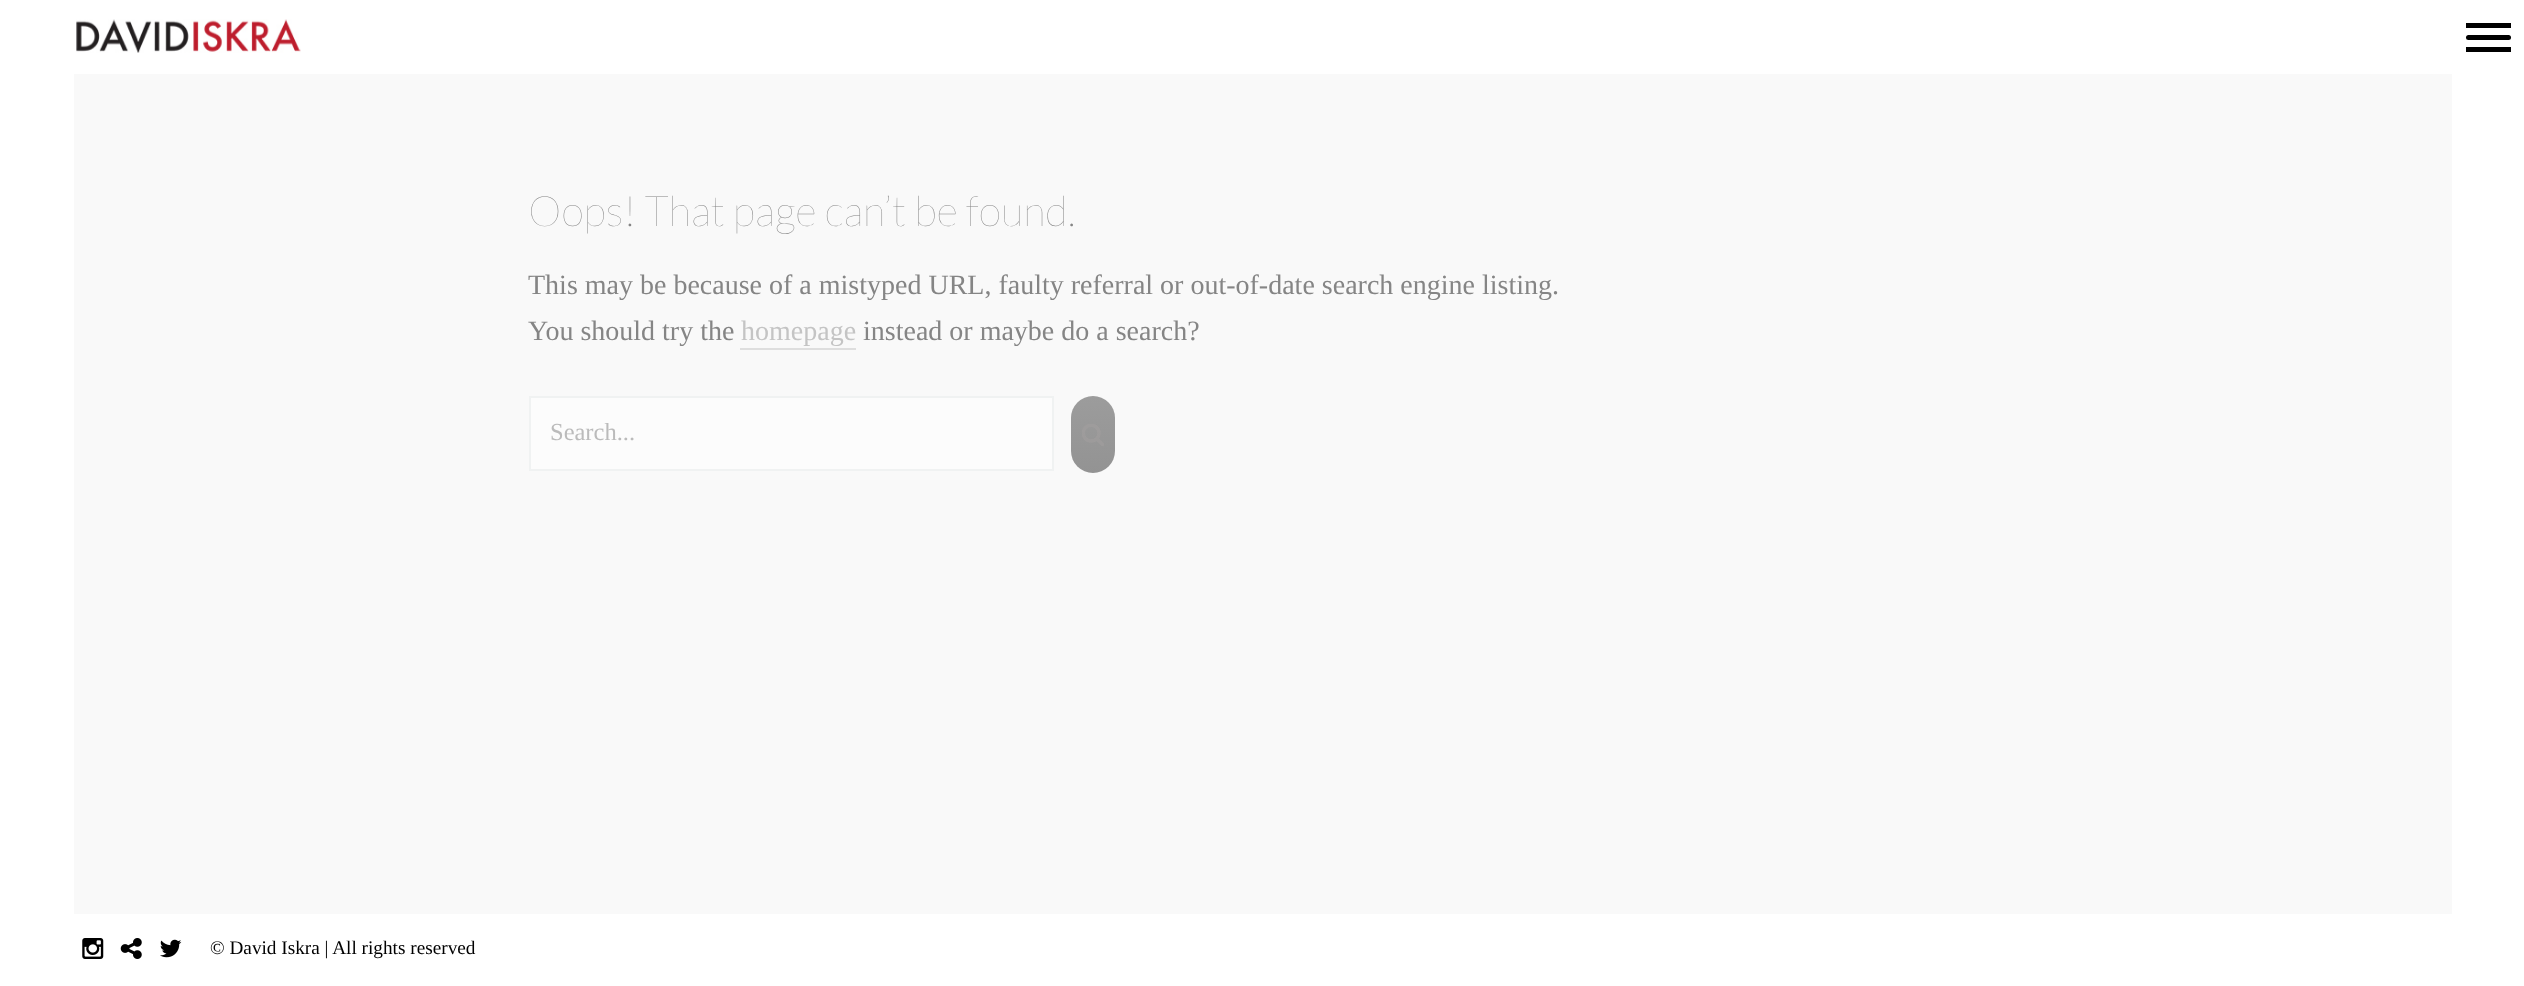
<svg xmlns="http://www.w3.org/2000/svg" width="2524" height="986">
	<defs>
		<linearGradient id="g1" gradientUnits="userSpaceOnUse" x1="1093" y1="396" x2="1093" y2="473"><stop offset="0" stop-color="#9C9C9C" /><stop offset="1" stop-color="#939393" /></linearGradient>
	</defs>
	<rect width="100%" height="100%" fill="#F9F9F9" />
	<rect x="0" y="0" width="2524" height="74" fill="#FFFFFF" />
	<image x="76" y="19" width="225" height="34" href="assets/img1.png" />
	<rect x="2466" y="35" width="45" height="5" rx="2.5" fill="#000000" />
	<rect x="2466" y="23" width="45" height="5" fill="#000000" />
	<rect x="2466" y="47" width="45" height="5" fill="#000000" />
	<rect x="0" y="74" width="74" height="840" fill="#FFFFFF" />
	<text x="528" y="226" font-family="Lato" font-size="42" font-weight="100" fill="#858585">Oops! That page can’t be found.</text>
	<g font-family="Liberation Serif" font-size="28" fill="#858585">
		<text x="528" y="294">This may be because of a mistyped URL, faulty referral or out-of-date search engine listing.</text>
		<text x="528" y="340">You should try the</text>
	</g>
	<text x="741" y="340" font-family="Liberation Serif" font-size="28" fill="#C4C4C4">homepage</text>
	<rect x="740" y="348" width="116" height="2" fill="#DEDEDE" />
	<text x="863" y="340" font-family="Liberation Serif" font-size="28" fill="#858585">instead or maybe do a search?</text>
	<rect x="530" y="397" width="523" height="73" fill="#FCFCFC" stroke="#F0F2F2" stroke-width="2" />
	<text x="550" y="440" font-family="Liberation Serif" font-size="24.5" fill="#BBBBBB">Search...</text>
	<rect x="1071" y="396" width="44" height="77" rx="22" fill="url(#g1)" />
	<image x="1082" y="424" width="22" height="22" href="assets/img2.png" />
	<rect x="2452" y="74" width="72" height="840" fill="#FFFFFF" />
	<rect x="0" y="914" width="2524" height="72" fill="#FFFFFF" />
	<image x="82" y="938" width="22" height="21" href="assets/img3.png" />
	<image x="120" y="938" width="22" height="21" href="assets/img4.png" />
	<image x="160" y="939" width="22" height="19" href="assets/img5.png" />
	<text x="210" y="954" font-family="Liberation Serif" font-size="19.25" fill="#000000">© David Iskra | All rights reserved</text>
</svg>
